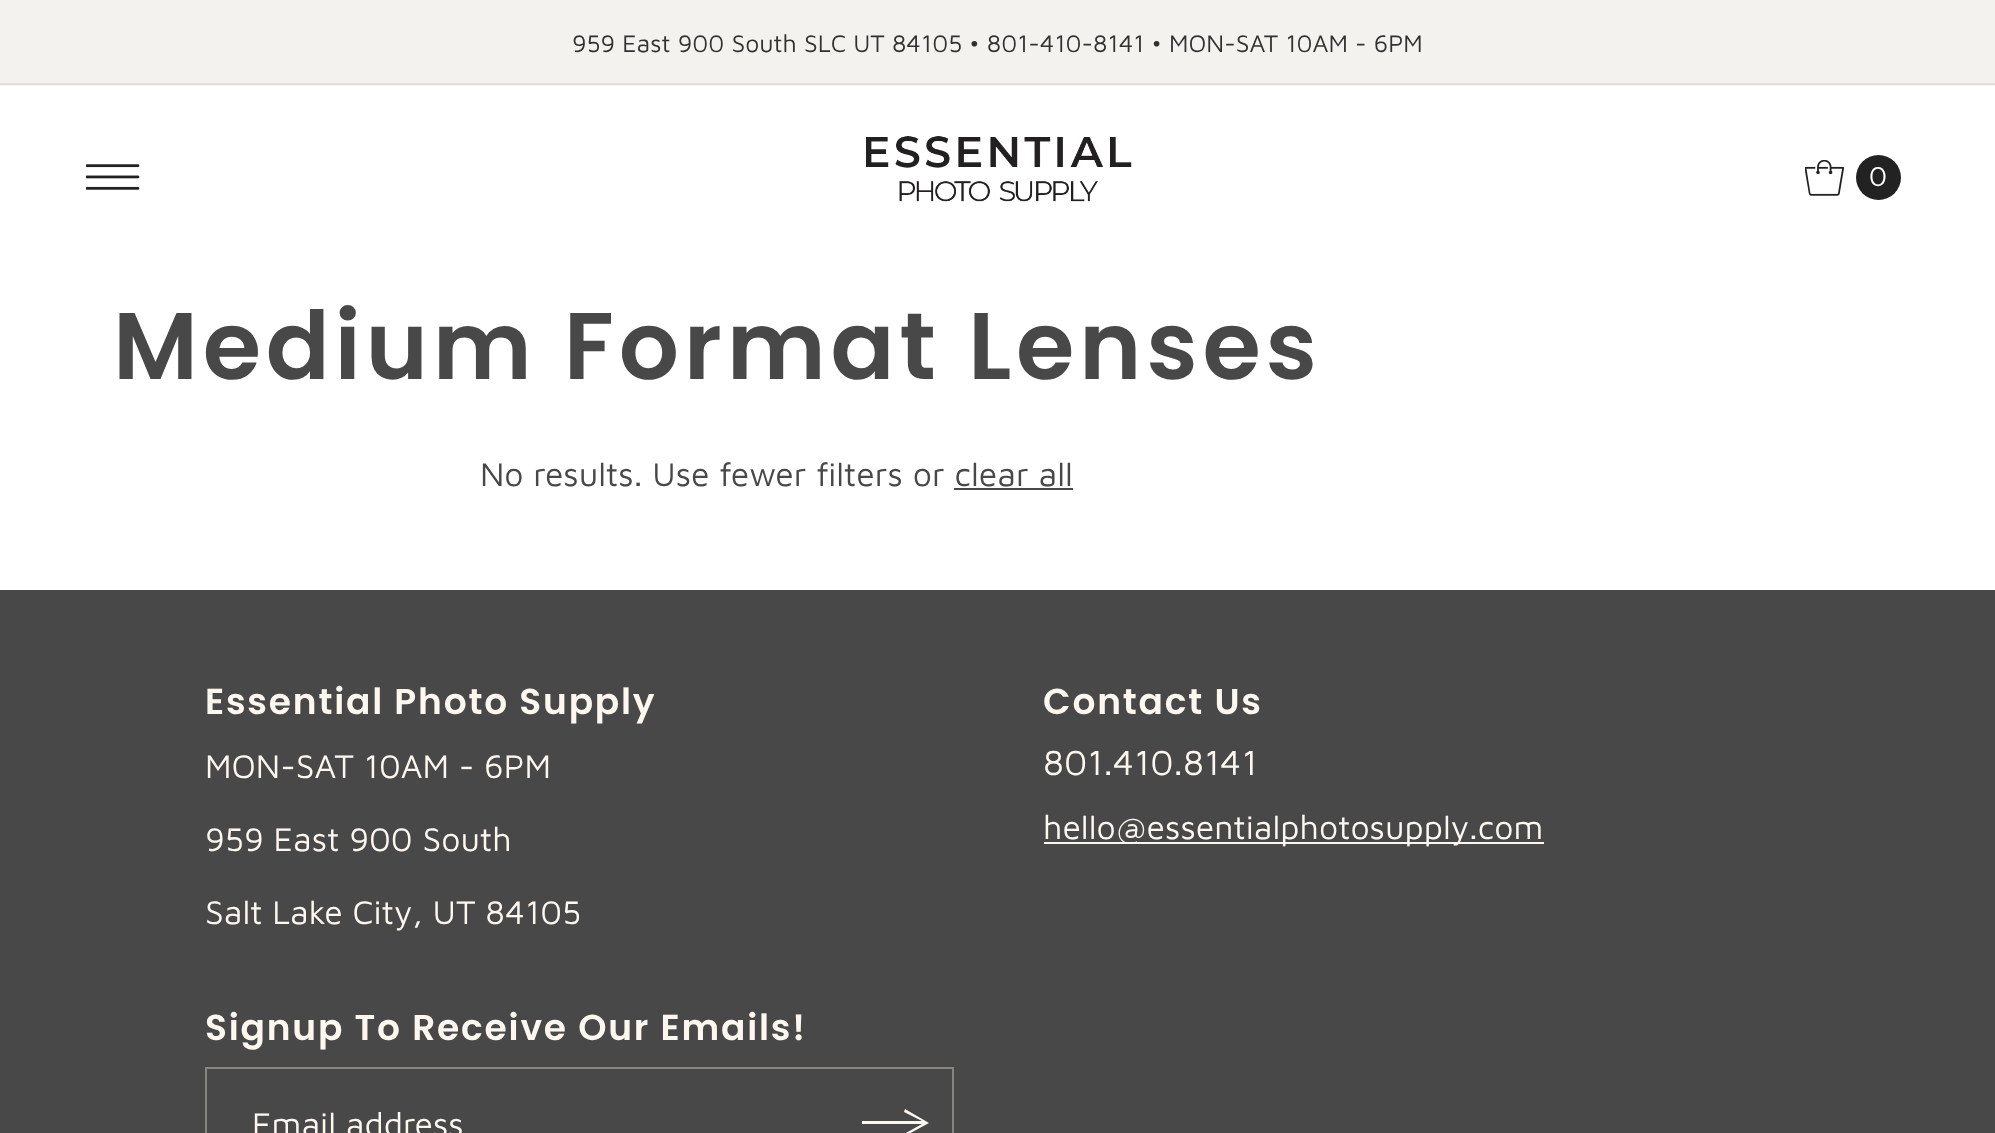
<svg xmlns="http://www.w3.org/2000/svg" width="1995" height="1133">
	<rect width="100%" height="100%" fill="#FFFFFF" />
	<rect x="0" y="0" width="1995" height="86" fill="#F3F2EE" />
	<text x="572" y="52" font-family="Maven Pro" font-size="24.75" fill="#313131">959 East 900 South SLC UT 84105 • 801-410-8141 • MON-SAT 10AM - 6PM</text>
	<rect x="0" y="83" width="1995" height="2" fill="#E0DFDB" />
	<image x="86" y="164" width="54" height="26" href="assets/img1.png" />
	<image x="866" y="136" width="266" height="66" href="assets/img2.png" />
	<image x="1805" y="160" width="40" height="36" href="assets/img3.png" />
	<circle cx="1878.5" cy="177.5" r="22.5" fill="#222222" />
	<text x="1869" y="186" font-family="Montserrat" font-size="27" fill="#FFFFFF">0</text>
	<text x="113" y="379" font-family="Poppins" font-size="94.5" font-weight="600" letter-spacing="4.75" fill="#484848">Medium Format Lenses</text>
	<text x="480" y="486" font-family="Maven Pro" font-size="33.75" fill="#484848">No results. Use fewer filters or clear all</text>
	<rect x="954" y="488" width="119" height="2" fill="#484848" />
	<rect x="0" y="590" width="1995" height="543" fill="#484848" />
	<text x="205" y="714" font-family="Poppins" font-size="36" font-weight="600" letter-spacing="1.8" fill="#FDF7EF">Essential Photo Supply</text>
	<g font-family="Maven Pro" font-size="33.75" fill="#FDF7EF">
		<text x="205" y="778">MON-SAT 10AM - 6PM</text>
		<text x="205" y="851">959 East 900 South</text>
		<text x="205" y="924">Salt Lake City, UT 84105</text>
	</g>
	<text x="1043" y="714" font-family="Poppins" font-size="36" font-weight="600" letter-spacing="1.8" fill="#FDF7EF">Contact Us</text>
	<text x="1043" y="775" font-family="Maven Pro" font-size="36" fill="#FDF7EF">801.410.8141</text>
	<rect x="1044" y="842" width="500" height="2" fill="#FDF7EF" />
	<text x="1043" y="839" font-family="Maven Pro" font-size="33.75" fill="#FDF7EF">hello@essentialphotosupply.com</text>
	<text x="205" y="1040" font-family="Poppins" font-size="36" font-weight="600" letter-spacing="1.8" fill="#FDF7EF">Signup To Receive Our Emails!</text>
	<rect x="206" y="1068" width="747" height="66" fill="none" stroke="#878582" stroke-width="2" />
	<text x="252" y="1136" font-family="Maven Pro" font-size="33.75" fill="#FDF7EF">Email address</text>
	<path d="M905 1109L929 1123L905 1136L904 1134L922 1124H862V1121H922L904 1112Z" fill="#FDF7EF" />
</svg>
